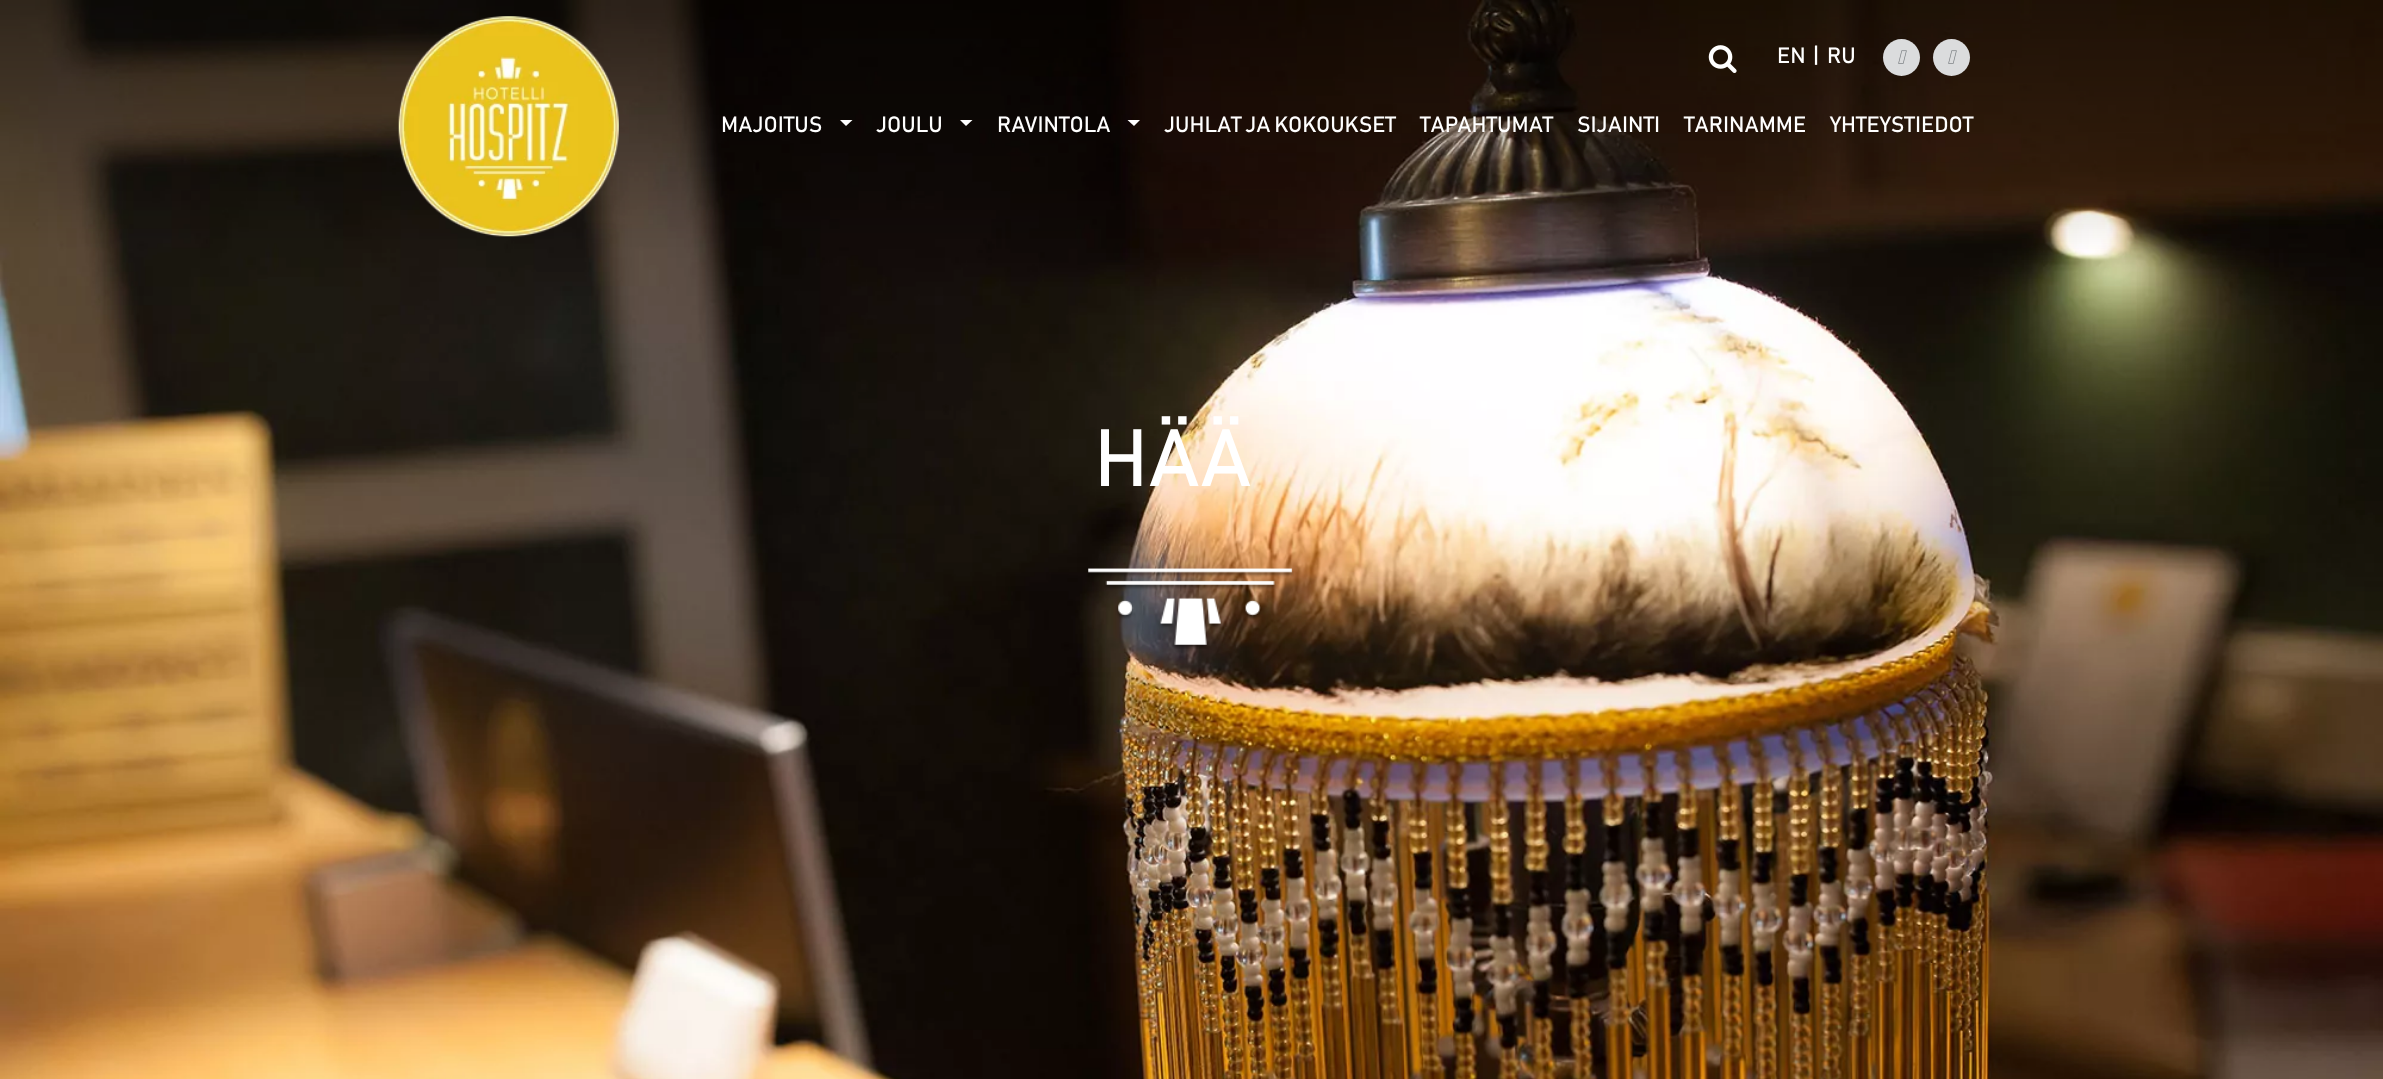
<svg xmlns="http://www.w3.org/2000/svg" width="2383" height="1079">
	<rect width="100%" height="100%" fill="#FFFFFF" />
	<image x="0" y="0" width="2383" height="1079" href="assets/img4.png" />
	<image x="398" y="16" width="221" height="221" href="assets/img1.png" />
	<image x="1708" y="45" width="29" height="28" href="assets/img2.png" />
	<g font-family="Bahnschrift" font-size="22" fill="#FFFFFF">
		<text x="1777" y="63">EN</text>
		<text x="1813" y="63">|</text>
		<text x="1827" y="63">RU</text>
	</g>
	<circle cx="1901.5" cy="57.5" r="18.5" fill="#DBDCDD" />
	<image x="1898" y="50" width="9" height="14" href="assets/img3.png" />
	<circle cx="1951.5" cy="57.5" r="18.5" fill="#DBDCDD" />
	<image x="1948" y="50" width="9" height="14" href="assets/img3.png" />
	<text x="721" y="132" font-family="Bahnschrift" font-size="22" fill="#FFFFFF">MAJOITUS</text>
	<path d="M840 120H852.5L846 126Z" fill="#FFFFFF" />
	<text x="876" y="132" font-family="Bahnschrift" font-size="22" fill="#FFFFFF">JOULU</text>
	<path d="M960 120H972.5L966 126Z" fill="#FFFFFF" />
	<text x="997" y="132" font-family="Bahnschrift" font-size="22" fill="#FFFFFF">RAVINTOLA</text>
	<path d="M1127.5 120H1140L1134 126Z" fill="#FFFFFF" />
	<g font-family="Bahnschrift" font-size="22" fill="#FFFFFF">
		<text x="1164" y="132">JUHLAT JA KOKOUKSET</text>
		<text x="1420" y="132">TAPAHTUMAT</text>
		<text x="1577" y="132">SIJAINTI</text>
		<text x="1684" y="132">TARINAMME</text>
		<text x="1830" y="132">YHTEYSTIEDOT</text>
	</g>
	<text x="1094" y="486" font-family="Bahnschrift" font-size="80" fill="#FFFFFF">HÄÄ</text>
	<image x="1088" y="568" width="206" height="81" href="assets/img5.png" />
</svg>
